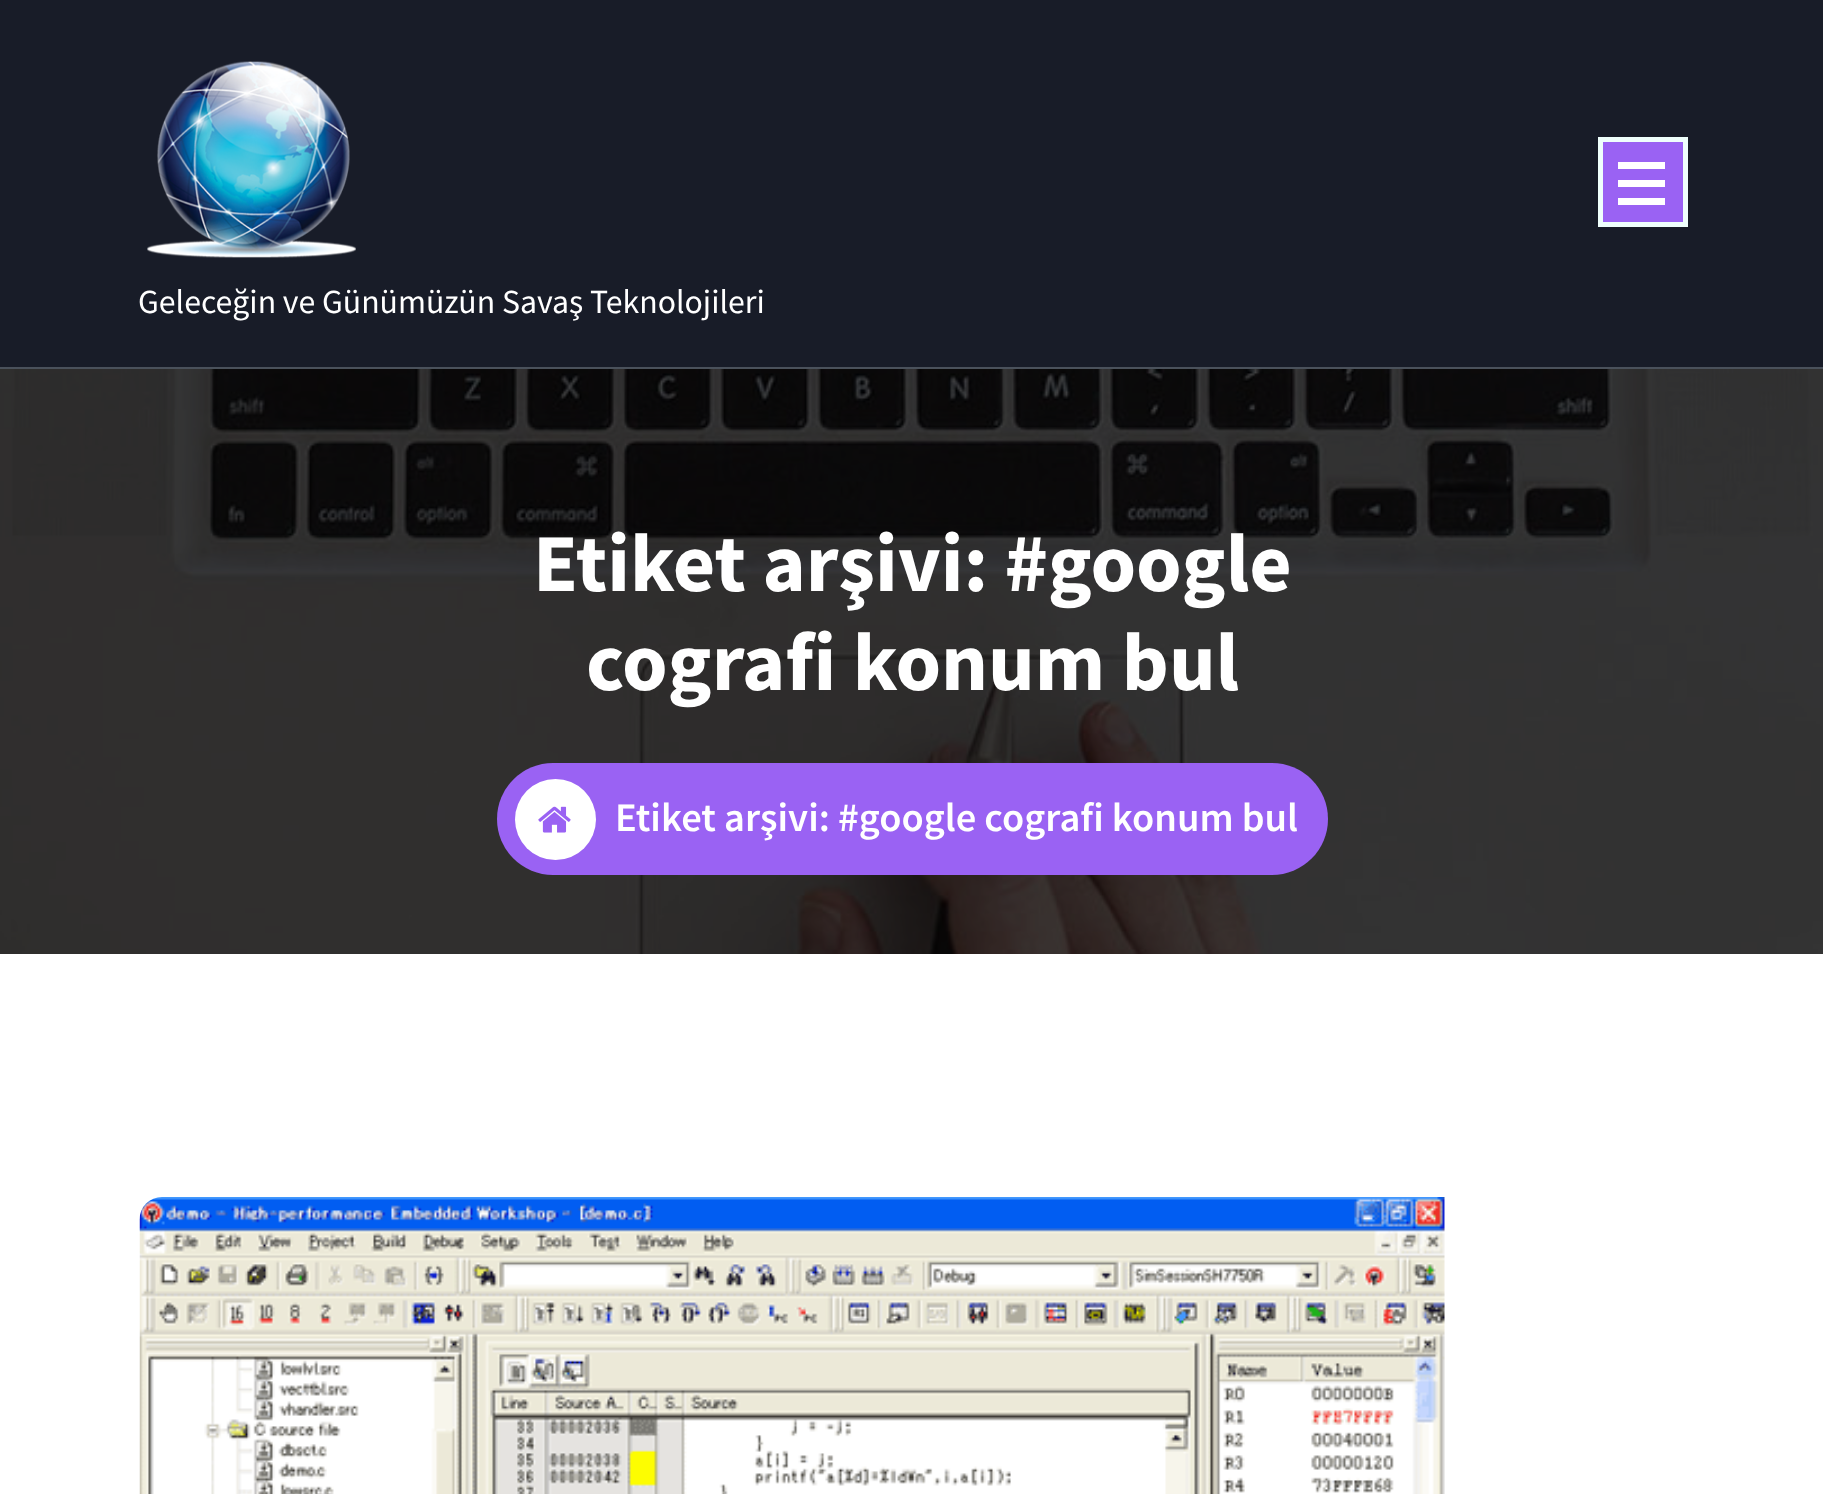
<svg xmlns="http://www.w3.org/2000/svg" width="1823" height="1494">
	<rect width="100%" height="100%" fill="#FFFFFF" />
	<rect x="0" y="0" width="1823" height="367" fill="#181C28" />
	<rect x="0" y="367" width="1823" height="2" fill="#4A515B" />
	<rect x="1600.5" y="139.5" width="85" height="85" fill="#9A62F3" stroke="#EFFFFC" stroke-width="5" />
	<rect x="1618" y="162" width="47" height="7" fill="#FFFFFF" />
	<rect x="1618" y="180" width="47" height="7" fill="#FFFFFF" />
	<rect x="1618" y="198" width="47" height="7" fill="#FFFFFF" />
	<image x="147" y="61" width="209" height="197" href="assets/img1.png" />
	<text x="138" y="313" font-family="Source Sans Pro" font-size="33.75" fill="#FFFFFF">Geleceğin ve Günümüzün Savaş Teknolojileri</text>
	<image x="0" y="369" width="1823" height="585" href="assets/img2.png" />
	<g font-family="Source Sans Pro" font-size="82.25" font-weight="700" fill="#FFFFFF">
		<text x="533" y="591">Etiket arşivi: #google</text>
		<text x="586" y="690">cografi konum bul</text>
	</g>
	<rect x="497" y="763" width="831" height="112" rx="56" fill="#9A62F3" />
	<circle cx="555.5" cy="819.5" r="40.5" fill="#FFFFFF" />
	<image x="538" y="806" width="33" height="27" href="assets/img3.png" />
	<text x="615" y="831" font-family="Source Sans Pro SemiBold" font-size="40.5" font-weight="600" fill="#FFFFFF">Etiket arşivi: #google cografi konum bul</text>
	<image x="139" y="1197" width="1306" height="297" href="assets/img4.png" />
</svg>
